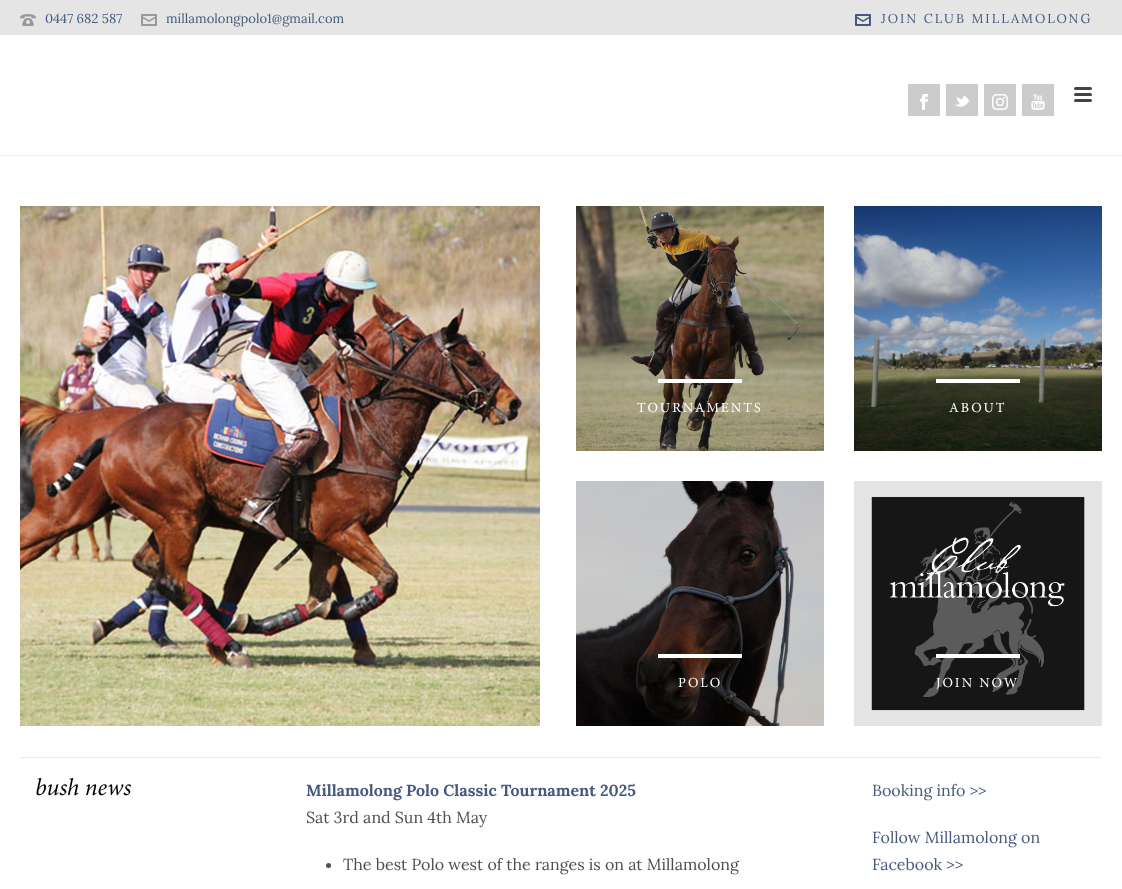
<svg xmlns="http://www.w3.org/2000/svg" width="1122" height="889">
	<rect width="100%" height="100%" fill="#FFFFFF" />
	<rect x="0" y="0" width="1122" height="35" fill="#E5E5E5" />
	<image x="20" y="14" width="16" height="12" href="assets/img1.png" />
	<text x="45" y="23" font-family="Lora" font-size="13" fill="#455A7D">0447 682 587</text>
	<image x="141" y="14" width="16" height="12" href="assets/img2.png" />
	<text x="166" y="23" font-family="Lora" font-size="13" fill="#455A7D">millamolongpolo1@gmail.com</text>
	<image x="855" y="14" width="16" height="12" href="assets/img3.png" />
	<text x="881" y="23" font-family="Lora" font-size="13" letter-spacing="2" fill="#455A7D">JOIN CLUB MILLAMOLONG</text>
	<rect x="0" y="155" width="1122" height="1" fill="#EDEDED" />
	<rect x="908" y="84" width="32" height="32" fill="#CCCCCC" />
	<image x="920" y="94" width="8" height="16" href="assets/img4.png" />
	<rect x="946" y="84" width="32" height="32" fill="#CCCCCC" />
	<image x="954" y="96" width="16" height="11" href="assets/img5.png" />
	<rect x="984" y="84" width="32" height="32" fill="#CCCCCC" />
	<image x="992" y="94" width="16" height="16" href="assets/img6.png" />
	<rect x="1022" y="84" width="32" height="32" fill="#CCCCCC" />
	<image x="1031" y="94" width="14" height="16" href="assets/img7.png" />
	<rect x="1074" y="87" width="18" height="3" rx="1.5" fill="#444444" />
	<rect x="1074" y="93" width="18" height="3" rx="1.5" fill="#444444" />
	<rect x="1074" y="99" width="18" height="3" rx="1.5" fill="#444444" />
	<image x="20" y="206" width="520" height="520" href="assets/img8.png" />
	<image x="576" y="206" width="248" height="245" href="assets/img9.png" />
	<rect x="658" y="379" width="84" height="4" fill="#FFFFFF" />
	<text x="637" y="412" font-family="Minion" font-size="14" letter-spacing="2" fill="#FFFFFF">TOURNAMENTS</text>
	<image x="576" y="481" width="248" height="245" href="assets/img10.png" />
	<rect x="658" y="654" width="84" height="4" fill="#FFFFFF" />
	<text x="678" y="687" font-family="Minion" font-size="14" letter-spacing="2" fill="#FFFFFF">POLO</text>
	<image x="854" y="206" width="248" height="245" href="assets/img11.png" />
	<rect x="936" y="379" width="84" height="4" fill="#FFFFFF" />
	<text x="949" y="412" font-family="Minion" font-size="14" letter-spacing="2" fill="#FFFFFF">ABOUT</text>
	<image x="854" y="481" width="248" height="245" href="assets/img12.png" />
	<rect x="936" y="654" width="84" height="4" fill="#FFFFFF" />
	<text x="936" y="687" font-family="Minion" font-size="14" letter-spacing="2" fill="#FFFFFF">JOIN NOW</text>
	<rect x="20" y="757" width="1082" height="1" fill="#EBEBEB" />
	<text x="35" y="795" font-family="Minion" font-size="24" font-style="italic" fill="#000000">bush news</text>
	<text x="306" y="796" font-family="Lora" font-size="16" font-weight="700" fill="#455A7D">Millamolong Polo Classic Tournament 2025</text>
	<text x="306" y="823" font-family="Lora" font-size="16" fill="#4F4F4F">Sat 3rd and Sun 4th May</text>
	<circle cx="328.5" cy="865.5" r="2.5" fill="#4F4F4F" />
	<text x="343" y="870" font-family="Lora" font-size="16" fill="#4F4F4F">The best Polo west of the ranges is on at Millamolong</text>
	<g font-family="Lora" font-size="16" fill="#455A7D">
		<text x="872" y="796">Booking info &gt;&gt;</text>
		<text x="872" y="843">Follow Millamolong on</text>
		<text x="872" y="870">Facebook &gt;&gt;</text>
	</g>
</svg>
